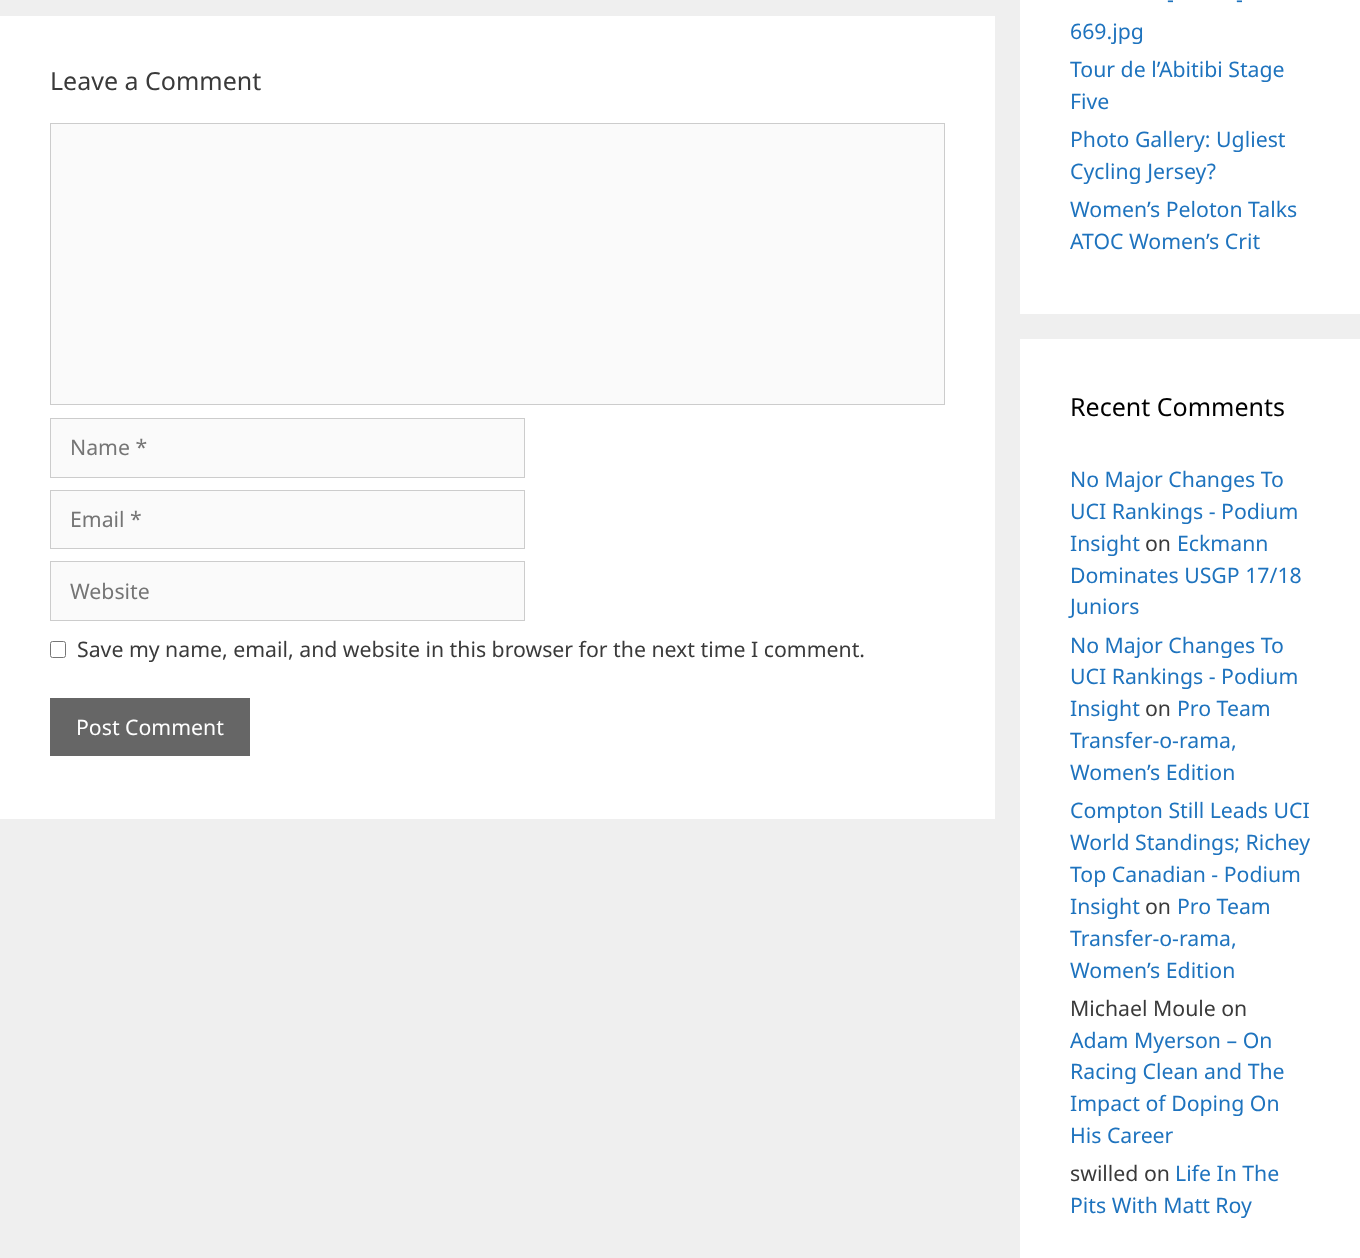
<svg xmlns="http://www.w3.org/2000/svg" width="1360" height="1258">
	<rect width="100%" height="100%" fill="#EFEFEF" />
	<rect x="0" y="16" width="995" height="803" fill="#FFFFFF" />
	<text x="50" y="90" font-family="Noto Sans" font-size="25" fill="#3A3A3A">Leave a Comment</text>
	<rect x="50.5" y="123.5" width="894" height="281" fill="#FAFAFA" stroke="#CCCCCC" />
	<rect x="50.5" y="418.5" width="474" height="59" fill="#FAFAFA" stroke="#CCCCCC" />
	<text x="70" y="455" font-family="Noto Sans" font-size="21.25" fill="#757575">Name *</text>
	<rect x="50.5" y="490.5" width="474" height="58" fill="#FAFAFA" stroke="#CCCCCC" />
	<text x="70" y="527" font-family="Noto Sans" font-size="21.25" fill="#757575">Email *</text>
	<rect x="50.5" y="561.5" width="474" height="59" fill="#FAFAFA" stroke="#CCCCCC" />
	<text x="70" y="599" font-family="Noto Sans" font-size="21.25" fill="#757575">Website</text>
	<rect x="50.5" y="641.5" width="15" height="16" rx="2" fill="none" stroke="#767676" />
	<text x="77" y="657" font-family="Noto Sans" font-size="21.25" fill="#3A3A3A">Save my name, email, and website in this browser for the next time I comment.</text>
	<rect x="50" y="698" width="200" height="58" fill="#666666" />
	<text x="76" y="735" font-family="Noto Sans" font-size="21.25" fill="#FFFFFF">Post Comment</text>
	<rect x="1020" y="0" width="340" height="314" fill="#FFFFFF" />
	<g font-family="Noto Sans" font-size="21.25" fill="#1E73BE">
		<text x="1167" y="7">-</text>
		<text x="1236" y="7">-</text>
		<text x="1070" y="39">669.jpg</text>
		<text x="1070" y="77">Tour de l’Abitibi Stage</text>
		<text x="1070" y="109">Five</text>
		<text x="1070" y="147">Photo Gallery: Ugliest</text>
		<text x="1070" y="179">Cycling Jersey?</text>
		<text x="1070" y="217">Women’s Peloton Talks</text>
		<text x="1070" y="249">ATOC Women’s Crit</text>
	</g>
	<rect x="1020" y="339" width="340" height="919" fill="#FFFFFF" />
	<text x="1070" y="416" font-family="Noto Sans" font-size="25" fill="#000000">Recent Comments</text>
	<g font-family="Noto Sans" font-size="21.25" fill="#1E73BE">
		<text x="1070" y="487">No Major Changes To</text>
		<text x="1070" y="519">UCI Rankings - Podium</text>
		<text x="1070" y="551">Insight</text>
	</g>
	<text x="1145" y="551" font-family="Noto Sans" font-size="21.25" fill="#3A3A3A">on</text>
	<g font-family="Noto Sans" font-size="21.25" fill="#1E73BE">
		<text x="1177" y="551">Eckmann</text>
		<text x="1070" y="583">Dominates USGP 17/18</text>
		<text x="1070" y="614">Juniors</text>
		<text x="1070" y="653">No Major Changes To</text>
		<text x="1070" y="684">UCI Rankings - Podium</text>
		<text x="1070" y="716">Insight</text>
	</g>
	<text x="1145" y="716" font-family="Noto Sans" font-size="21.25" fill="#3A3A3A">on</text>
	<g font-family="Noto Sans" font-size="21.25" fill="#1E73BE">
		<text x="1177" y="716">Pro Team</text>
		<text x="1070" y="748">Transfer-o-rama,</text>
		<text x="1070" y="780">Women’s Edition</text>
		<text x="1070" y="818">Compton Still Leads UCI</text>
		<text x="1070" y="850">World Standings; Richey</text>
		<text x="1070" y="882">Top Canadian - Podium</text>
		<text x="1070" y="914">Insight</text>
	</g>
	<text x="1145" y="914" font-family="Noto Sans" font-size="21.25" fill="#3A3A3A">on</text>
	<g font-family="Noto Sans" font-size="21.25" fill="#1E73BE">
		<text x="1177" y="914">Pro Team</text>
		<text x="1070" y="946">Transfer-o-rama,</text>
		<text x="1070" y="978">Women’s Edition</text>
	</g>
	<text x="1070" y="1016" font-family="Noto Sans" font-size="21.25" fill="#3A3A3A">Michael Moule on</text>
	<g font-family="Noto Sans" font-size="21.25" fill="#1E73BE">
		<text x="1070" y="1048">Adam Myerson – On</text>
		<text x="1070" y="1079">Racing Clean and The</text>
		<text x="1070" y="1111">Impact of Doping On</text>
		<text x="1070" y="1143">His Career</text>
	</g>
	<text x="1070" y="1181" font-family="Noto Sans" font-size="21.25" fill="#3A3A3A">swilled on</text>
	<g font-family="Noto Sans" font-size="21.25" fill="#1E73BE">
		<text x="1175" y="1181">Life In The</text>
		<text x="1070" y="1213">Pits With Matt Roy</text>
	</g>
</svg>
